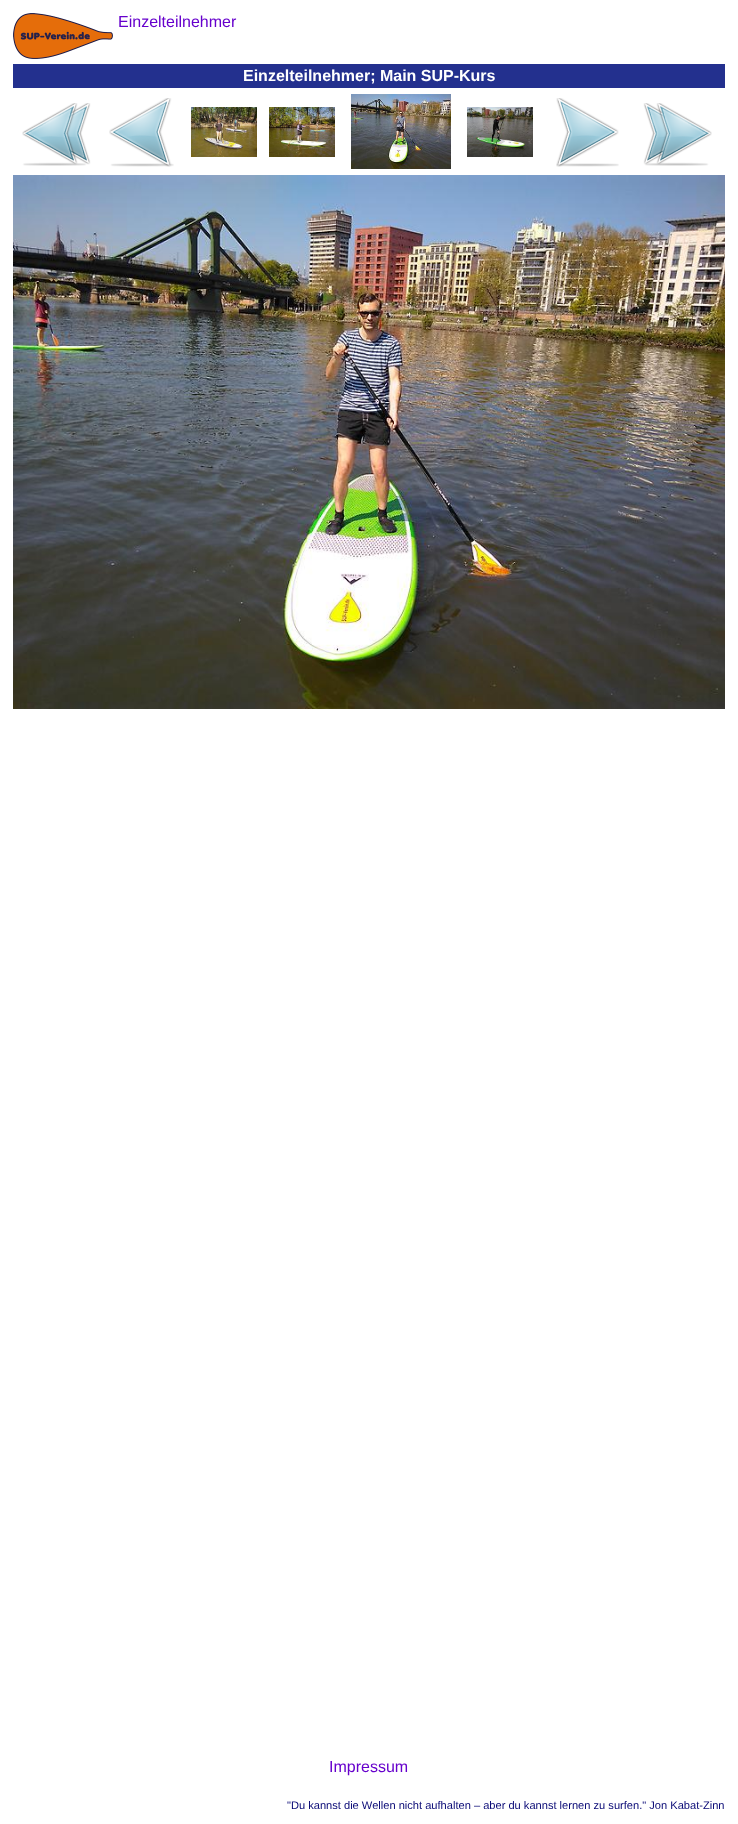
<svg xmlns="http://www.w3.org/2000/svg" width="738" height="1824">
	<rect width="100%" height="100%" fill="#FFFFFF" />
	<image x="13" y="13" width="100" height="46" href="assets/img1.png" />
	<text x="118" y="27" font-family="Liberation Sans" font-size="16" fill="#6600CC">Einzelteilnehmer</text>
	<rect x="13" y="64" width="712" height="24" fill="#23308E" />
	<text x="243" y="81" font-family="Liberation Sans" font-size="16" font-weight="700" fill="#FFFFFF">Einzelteilnehmer; Main SUP-Kurs</text>
	<image x="22" y="103" width="69" height="63" href="assets/img2.png" />
	<image x="109" y="98" width="65" height="69" href="assets/img3.png" />
	<image x="191" y="107" width="66" height="50" href="assets/img4.png" />
	<image x="269" y="107" width="66" height="50" href="assets/img5.png" />
	<image x="351" y="94" width="100" height="75" href="assets/img6.png" />
	<image x="467" y="107" width="66" height="50" href="assets/img7.png" />
	<image x="556" y="98" width="63" height="69" href="assets/img8.png" />
	<image x="643" y="103" width="69" height="63" href="assets/img9.png" />
	<image x="13" y="175" width="712" height="534" href="assets/img10.png" />
	<text x="329" y="1772" font-family="Liberation Sans" font-size="16" fill="#6600CC">Impressum</text>
	<text x="287" y="1809" font-family="Liberation Sans" font-size="11.1" fill="#080875">"Du kannst die Wellen nicht aufhalten – aber du kannst lernen zu surfen." Jon Kabat-Zinn</text>
</svg>
